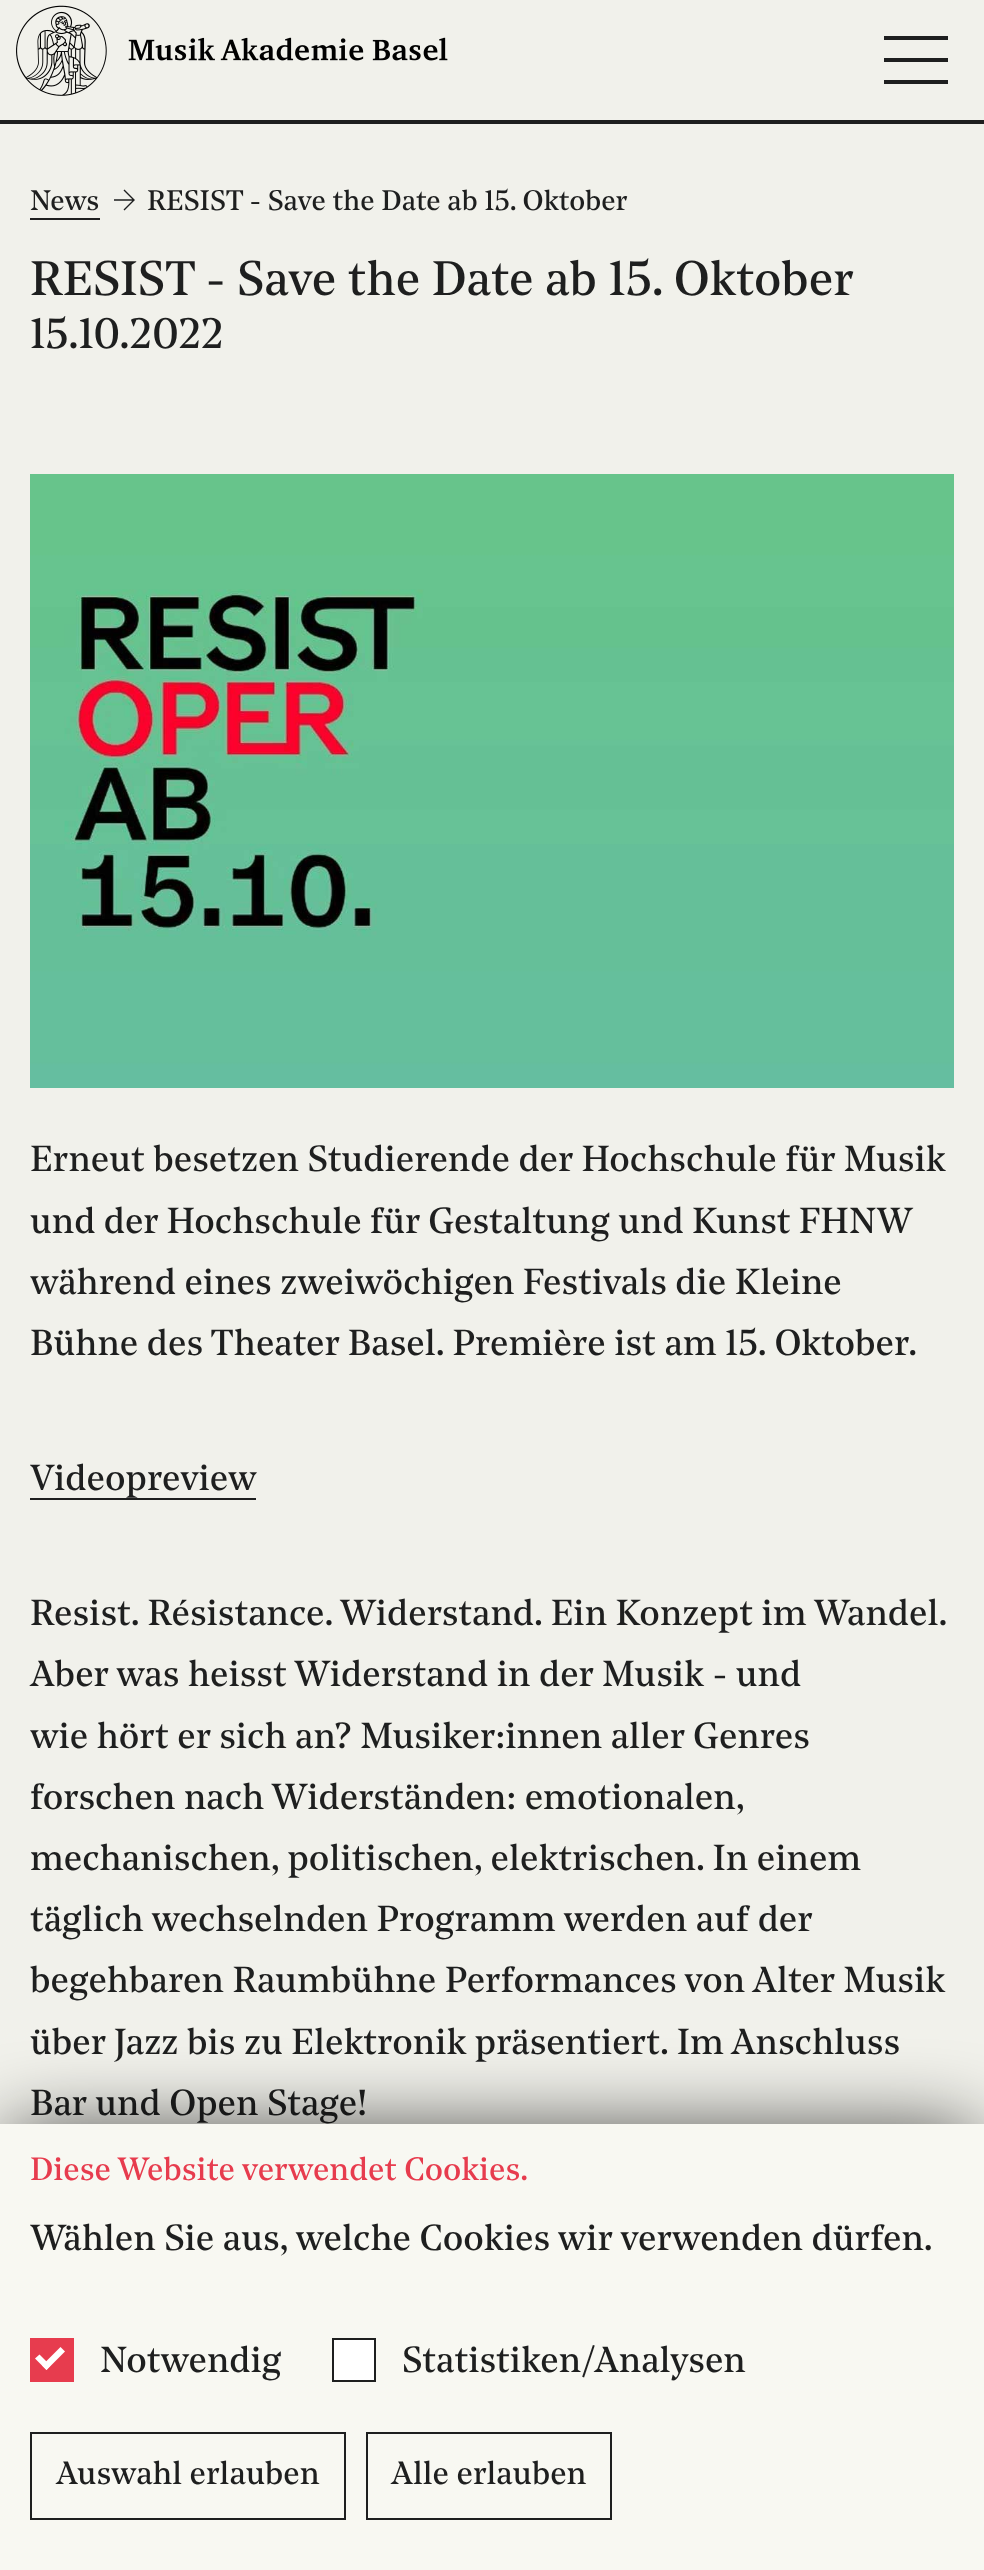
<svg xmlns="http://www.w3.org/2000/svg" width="984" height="2570">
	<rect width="100%" height="100%" fill="#F1F1EB" />
	<image x="16" y="5" width="432" height="91" href="assets/img1.png" />
	<rect x="884" y="58" width="64" height="4" fill="#1E1F1F" />
	<rect x="884" y="36" width="64" height="4" fill="#1E1F1F" />
	<rect x="884" y="80" width="64" height="4" fill="#1E1F1F" />
	<rect x="0" y="120" width="984" height="4" fill="#1E1F1F" />
	<text x="30" y="210" font-family="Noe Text" font-size="28" fill="#1E1F1F">News</text>
	<rect x="30" y="218" width="70" height="2" fill="#1E1F1F" />
	<path d="M124 190L134 200L124 210M134 200H114" fill="none" stroke="#1E1F1F" stroke-width="1.4" />
	<text x="147" y="210" font-family="Noe Text" font-size="28" fill="#1E1F1F">RESIST - Save the Date ab 15. Oktober</text>
	<text x="30" y="295" font-family="Noe Text" font-size="48" fill="#1E1F1F">RESIST - Save the Date ab 15. Oktober</text>
	<text x="30" y="348" font-family="Noe Text" font-size="42" fill="#1E1F1F">15.10.2022</text>
	<image x="30" y="474" width="924" height="614" href="assets/img2.png" />
	<g font-family="Noe Text" font-size="36" fill="#1E1F1F">
		<text x="30" y="1171">Erneut besetzen Studierende der Hochschule für Musik</text>
		<text x="30" y="1233" word-spacing="-0.25">und der Hochschule für Gestaltung und Kunst FHNW</text>
		<text x="30" y="1294">während eines zweiwöchigen Festivals die Kleine</text>
		<text x="30" y="1355">Bühne des Theater Basel. Première ist am 15. Oktober.</text>
		<text x="30" y="1490">Videopreview</text>
	</g>
	<rect x="30" y="1498" width="226" height="2" fill="#1E1F1F" />
	<g font-family="Noe Text" font-size="36" fill="#1E1F1F">
		<text x="30" y="1625">Resist. Résistance. Widerstand. Ein Konzept im Wandel.</text>
		<text x="30" y="1686">Aber was heisst Widerstand in der Musik - und</text>
		<text x="30" y="1748">wie hört er sich an? Musiker:innen aller Genres</text>
		<text x="30" y="1809">forschen nach Widerständen: emotionalen,</text>
		<text x="30" y="1870">mechanischen, politischen, elektrischen. In einem</text>
		<text x="30" y="1931">täglich wechselnden Programm werden auf der</text>
		<text x="30" y="1992">begehbaren Raumbühne Performances von Alter Musik</text>
		<text x="30" y="2054">über Jazz bis zu Elektronik präsentiert. Im Anschluss</text>
		<text x="30" y="2115">Bar und Open Stage!</text>
	</g>
	<rect x="8" y="2132" width="968" height="430" fill="#000000" fill-opacity="0.75" filter="blur(40px)" />
	<rect x="0" y="2124" width="984" height="446" fill="#F8F8F2" />
	<text x="30" y="2180" font-family="Noe Text" font-size="32" fill="#E73C4E">Diese Website verwendet Cookies.</text>
	<text x="30" y="2250" font-family="Noe Text" font-size="36" fill="#1E1F1F">Wählen Sie aus, welche Cookies wir verwenden dürfen.</text>
	<rect x="30" y="2338" width="44" height="44" fill="#E73C4E" />
	<path d="M60.5 2347L65 2351.5L46.5 2370L42 2365.5Z" fill="#FFFFFF" />
	<path d="M39.5 2354.5L50.5 2365.5L46.5 2370L35 2358.5Z" fill="#FFFFFF" />
	<text x="100" y="2372" font-family="Noe Text" font-size="36" fill="#1E1F1F">Notwendig</text>
	<rect x="333" y="2339" width="42" height="42" fill="#FFFFFF" stroke="#1E1F1F" stroke-width="2" />
	<text x="402" y="2372" font-family="Noe Text" font-size="36" fill="#1E1F1F">Statistiken/Analysen</text>
	<rect x="31" y="2433" width="314" height="86" fill="none" stroke="#1E1F1F" stroke-width="2" />
	<text x="56" y="2484" font-family="Noe Text" font-size="32" fill="#1E1F1F">Auswahl erlauben</text>
	<rect x="367" y="2433" width="244" height="86" fill="none" stroke="#1E1F1F" stroke-width="2" />
	<text x="391" y="2484" font-family="Noe Text" font-size="32" fill="#1E1F1F">Alle erlauben</text>
</svg>
